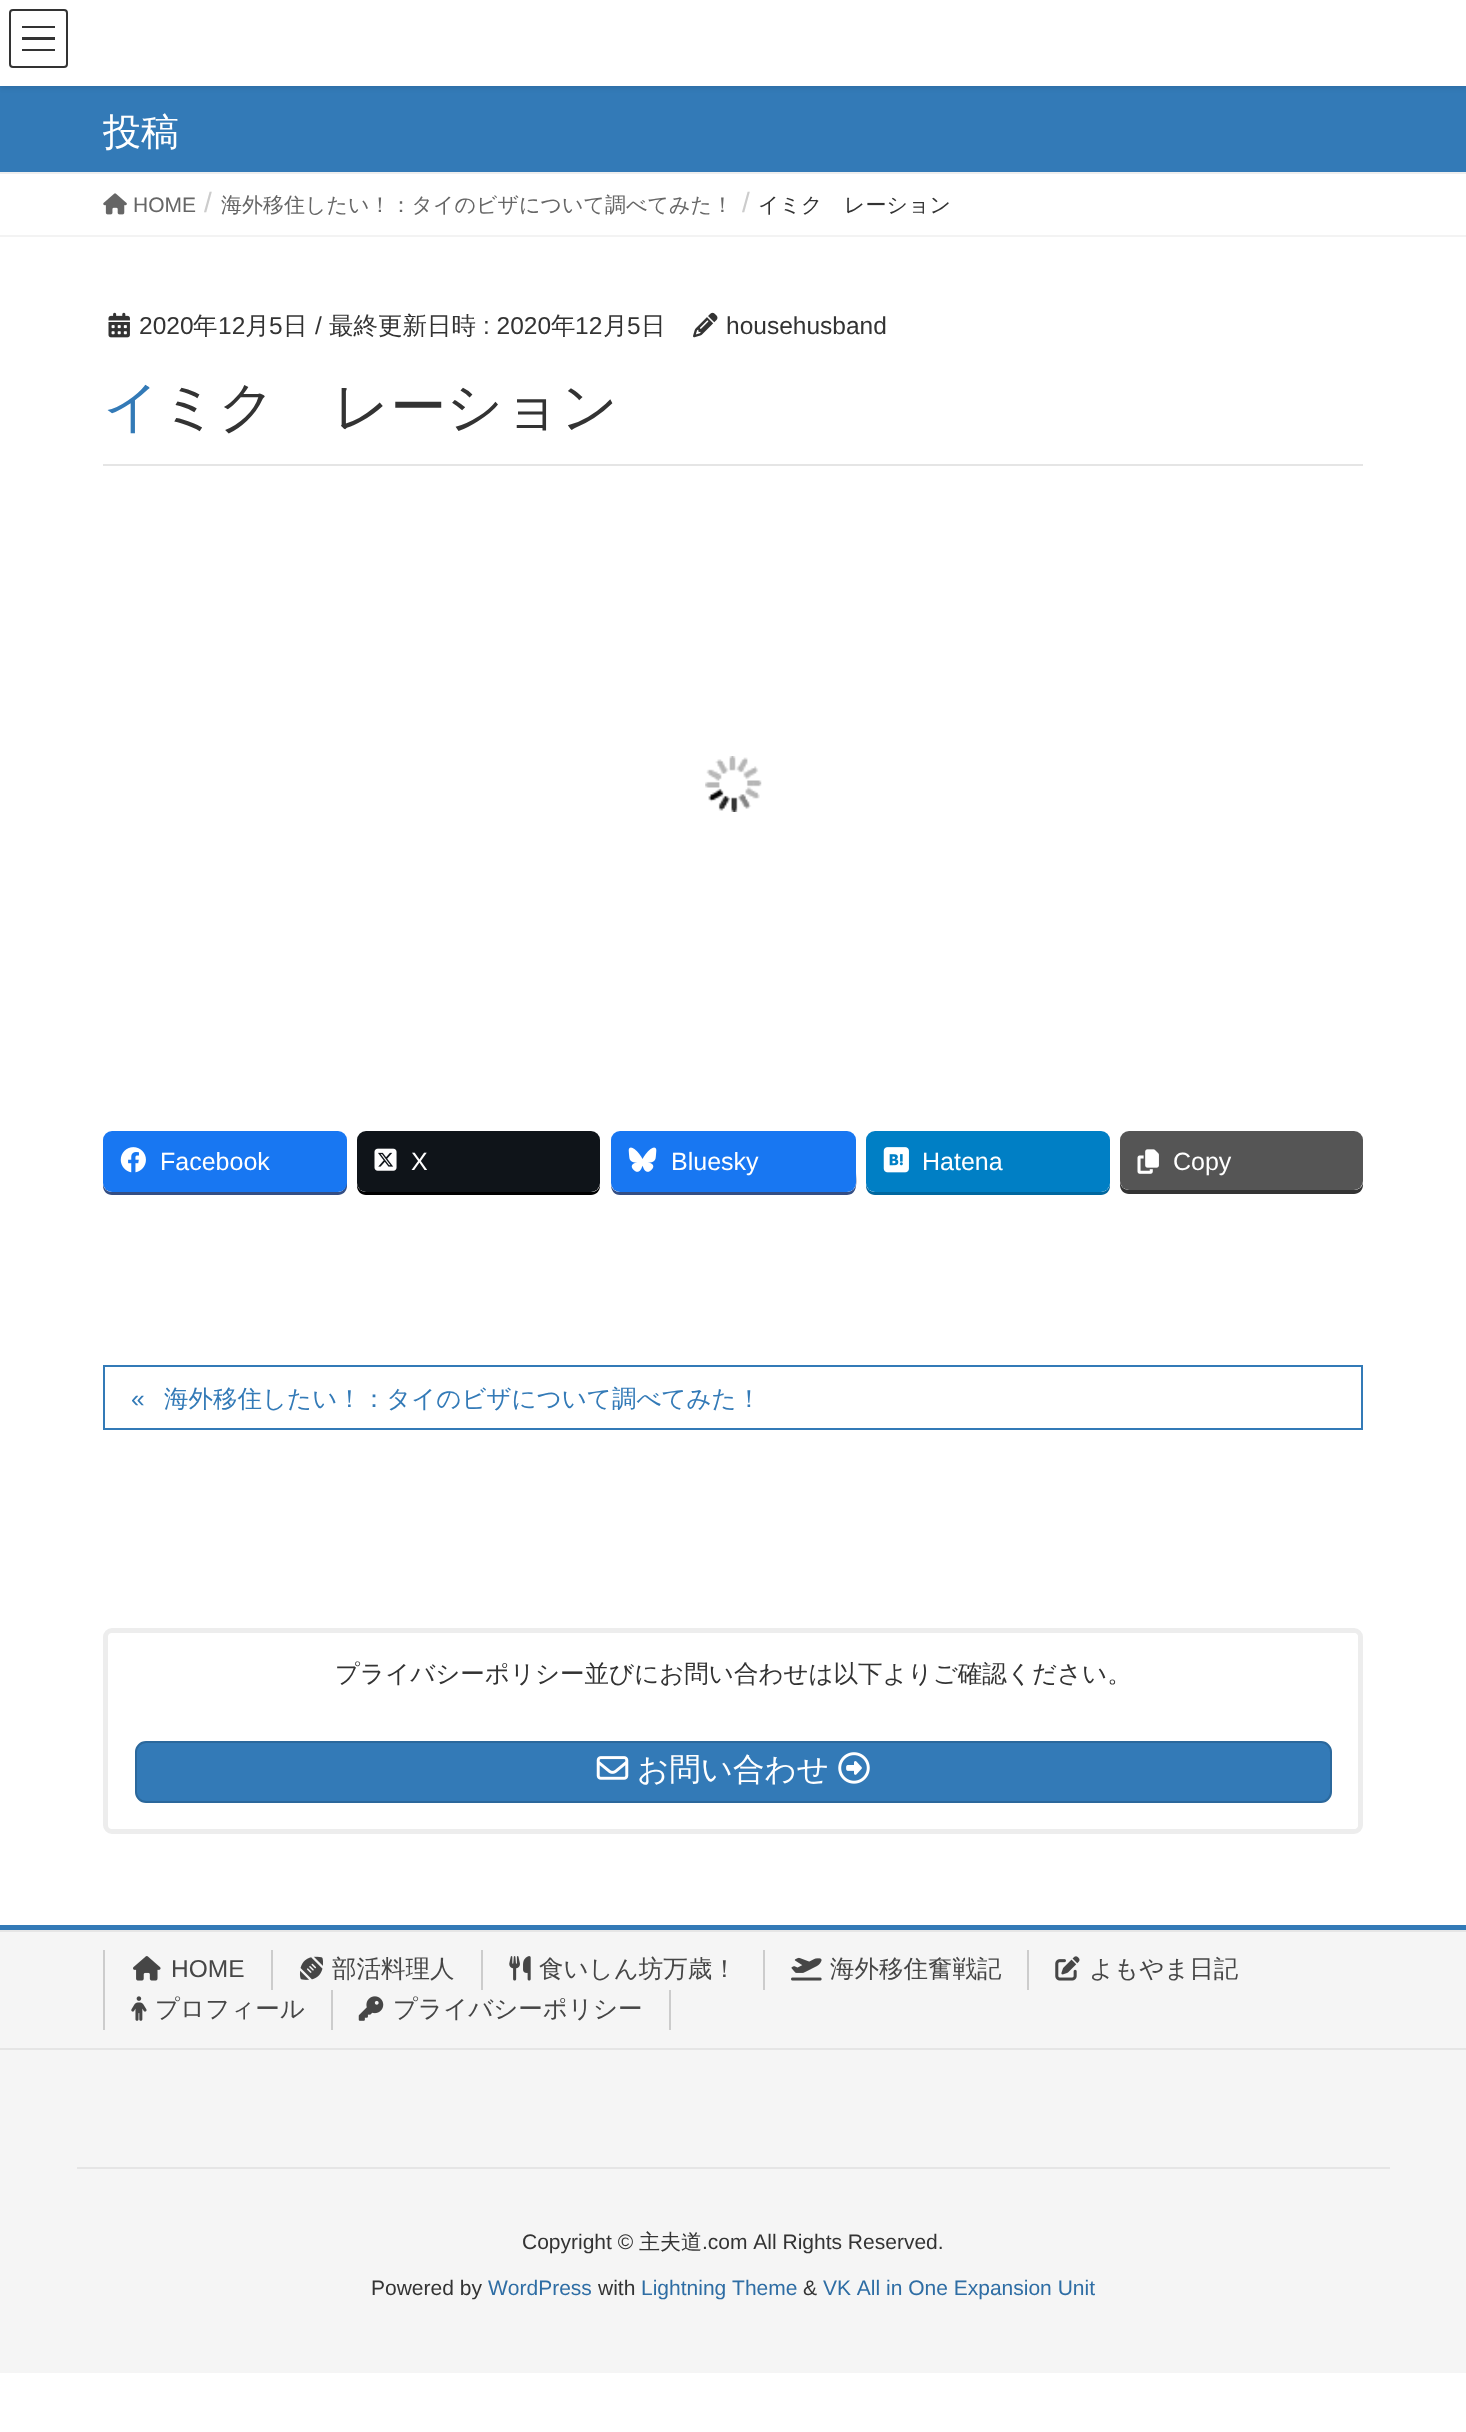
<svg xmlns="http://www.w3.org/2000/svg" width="1466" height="2432">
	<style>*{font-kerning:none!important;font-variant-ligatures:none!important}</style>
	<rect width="100%" height="100%" fill="#FFFFFF" />
	<rect x="0" y="86" width="1466" height="86" fill="#337AB7" />
	<rect x="0" y="2" width="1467" height="86" fill="#000000" fill-opacity="0.1" filter="blur(2.5px)" />
	<rect x="0" y="0" width="1466" height="86" fill="#FFFFFF" />
	<rect x="22" y="26" width="33" height="2" fill="#333333" />
	<rect x="22" y="37" width="33" height="3" fill="#333333" />
	<rect x="22" y="49" width="33" height="2" fill="#333333" />
	<rect x="10" y="10" width="57" height="57" rx="3" fill="none" stroke="#333333" stroke-width="2" />
	<rect x="0" y="172" width="1466" height="2" fill="#EEEEEE" />
	<text x="103" y="145" font-family="WenQuanYi Zen Hei" font-size="38" font-weight="500" fill="#FFFFFF">投稿</text>
	<rect x="0" y="235" width="1466" height="2" fill="#F3F3F3" />
	<image x="103" y="193" width="24" height="22" href="assets/img1.png" />
	<text x="133" y="212" font-family="Liberation Sans" font-size="21" fill="#666666">HOME</text>
	<text x="204" y="212" font-family="Liberation Sans" font-size="28" fill="#CCCCCC">/</text>
	<text x="221" y="212" font-family="WenQuanYi Zen Hei" font-size="21" font-weight="500" fill="#666666">海外移住したい！：タイのビザについて調べてみた！</text>
	<text x="742" y="212" font-family="Liberation Sans" font-size="28" fill="#CCCCCC">/</text>
	<text x="758" y="212" font-family="WenQuanYi Zen Hei" font-size="21" font-weight="500" fill="#333333">イミグレーション</text>
	<rect x="103" y="464" width="1260" height="2" fill="#E5E5E5" />
	<image x="108" y="312" width="22" height="26" href="assets/img2.png" />
	<text x="139" y="334" font-family="Liberation Sans" font-size="24.5" fill="#333333">2020</text>
	<text x="193" y="334" font-family="WenQuanYi Zen Hei" font-size="24.5" font-weight="500" fill="#333333">年</text>
	<text x="218" y="334" font-family="Liberation Sans" font-size="24.5" fill="#333333">12</text>
	<text x="245" y="334" font-family="WenQuanYi Zen Hei" font-size="24.5" font-weight="500" fill="#333333">月</text>
	<text x="269" y="334" font-family="Liberation Sans" font-size="24.5" fill="#333333">5</text>
	<text x="283" y="334" font-family="WenQuanYi Zen Hei" font-size="24.5" font-weight="500" fill="#333333">日</text>
	<text x="315" y="334" font-family="Liberation Sans" font-size="24.5" fill="#333333">/</text>
	<text x="329" y="334" font-family="WenQuanYi Zen Hei" font-size="24.5" font-weight="500" fill="#333333">最終更新日時</text>
	<text x="483" y="334" font-family="Liberation Sans" font-size="24.5" fill="#333333">: 2020</text>
	<text x="551" y="334" font-family="WenQuanYi Zen Hei" font-size="24.5" font-weight="500" fill="#333333">年</text>
	<text x="575" y="334" font-family="Liberation Sans" font-size="24.5" fill="#333333">12</text>
	<text x="603" y="334" font-family="WenQuanYi Zen Hei" font-size="24.5" font-weight="500" fill="#333333">月</text>
	<text x="627" y="334" font-family="Liberation Sans" font-size="24.5" fill="#333333">5</text>
	<text x="641" y="334" font-family="WenQuanYi Zen Hei" font-size="24.5" font-weight="500" fill="#333333">日</text>
	<image x="693" y="312" width="25" height="26" href="assets/img3.png" />
	<text x="726" y="334" font-family="Liberation Sans" font-size="24.5" fill="#333333">househusband</text>
	<text x="103" y="426" font-family="Noto Sans" font-size="56" font-weight="500" fill="#337AB7">イ</text>
	<text x="161" y="426" font-family="WenQuanYi Zen Hei" font-size="56" font-weight="500" fill="#333333">ミグレーション</text>
	<image x="705" y="756" width="57" height="56" href="assets/img4.png" />
	<path d="M103 1141V1186C103 1191 107 1195 112 1195H338C343 1195 347 1191 347 1186V1143L346 1140V1183C346 1188 343 1192 338 1192H112C107 1192 103 1188 103 1183Z" fill="#344E84" />
	<rect x="103" y="1131" width="244" height="61" rx="9" fill="#1877F2" />
	<image x="120" y="1147" width="26" height="26" href="assets/img5.png" />
	<text x="160" y="1170" font-family="Liberation Sans" font-size="25" fill="#FFFFFF">Facebook</text>
	<path d="M357 1183V1186C357 1191 361 1195 366 1195H591C596 1195 600 1191 600 1186V1185C599 1189 596 1192 592 1192H366C361 1192 357 1188 357 1183Z" fill="#000000" />
	<rect x="357" y="1131" width="243" height="61" rx="9" fill="#0F1419" />
	<image x="374" y="1148" width="23" height="23" href="assets/img6.png" />
	<text x="411" y="1170" font-family="Liberation Sans" font-size="25" fill="#FFFFFF">X</text>
	<path d="M611 1185C611 1190 614 1195 620 1195H847C859 1195 856 1179 856 1172V1141V1183C856 1188 852 1192 847 1192H620C615 1192 612 1189 611 1185Z" fill="#344E84" />
	<rect x="611" y="1131" width="245" height="61" rx="9" fill="#1877F2" />
	<image x="628" y="1147" width="29" height="25" href="assets/img7.png" />
	<text x="671" y="1170" font-family="Liberation Sans" font-size="25" fill="#FFFFFF">Bluesky</text>
	<path d="M866 1141V1186C866 1191 870 1195 875 1195H1101C1106 1195 1110 1191 1110 1186V1143V1140V1183C1110 1188 1106 1192 1101 1192H875C870 1192 866 1188 866 1183Z" fill="#00679F" />
	<rect x="866" y="1131" width="244" height="61" rx="9" fill="#007FC5" />
	<image x="883" y="1147" width="26" height="26" href="assets/img8.png" />
	<text x="922" y="1170" font-family="Liberation Sans" font-size="25" fill="#FFFFFF">Hatena</text>
	<path d="M1120 1181V1185C1120 1190 1124 1194 1129 1194H1354C1359 1194 1363 1190 1363 1185V1183C1362 1187 1359 1190 1354 1190H1129C1124 1190 1120 1186 1120 1181Z" fill="#333333" />
	<rect x="1120" y="1131" width="243" height="59" rx="9" fill="#555555" />
	<image x="1137" y="1149" width="22" height="25" href="assets/img9.png" />
	<text x="1173" y="1170" font-family="Liberation Sans" font-size="25" fill="#FFFFFF">Copy</text>
	<rect x="104" y="1366" width="1258" height="63" fill="none" stroke="#337AB7" stroke-width="2" />
	<text x="131" y="1407" font-family="Liberation Sans" font-size="24.5" fill="#337AB7">«</text>
	<text x="164" y="1407" font-family="WenQuanYi Zen Hei" font-size="24.5" font-weight="500" fill="#337AB7">海外移住したい！：タイのビザについて調べてみた！</text>
	<rect x="105.5" y="1630.5" width="1255" height="201" rx="6.5" fill="none" stroke="#EDEDED" stroke-width="5" />
	<path d="M113 1633C111 1633 109 1635 109 1637V1825C109 1827 111 1829 113 1829H1354C1356 1829 1358 1827 1358 1825V1637C1358 1635 1356 1633 1354 1633ZM111 1635V1827H1356V1635Z" fill="#FFFFFF" fill-opacity="0.8" fill-rule="evenodd" />
	<text x="335" y="1682" font-family="WenQuanYi Zen Hei" font-size="24.5" font-weight="500" fill="#333333">プライバシーポリシー並びにお問い合わせは以下よりご確認ください。</text>
	<rect x="136" y="1742" width="1195" height="60" rx="10" fill="#337AB7" stroke="#2B689C" stroke-width="2" />
	<image x="596" y="1756" width="33" height="24" href="assets/img10.png" />
	<text x="637" y="1780" font-family="WenQuanYi Zen Hei" font-size="31.5" font-weight="500" fill="#FFFFFF">お問い合わせ</text>
	<image x="838" y="1752" width="32" height="32" href="assets/img11.png" />
	<rect x="0" y="1932" width="1466" height="441" fill="#F5F5F5" />
	<rect x="0" y="1925" width="1466" height="5" fill="#337AB7" />
	<rect x="0" y="1930" width="1466" height="2" fill="#E5E5E5" />
	<rect x="0" y="2048" width="1466" height="2" fill="#E5E5E5" />
	<rect x="103" y="1950" width="2" height="80" fill="#CCCCCC" />
	<image x="133" y="1956" width="28" height="25" href="assets/img12.png" />
	<text x="171" y="1977" font-family="Liberation Sans" font-size="24.5" fill="#464646">HOME</text>
	<rect x="271" y="1950" width="2" height="40" fill="#CCCCCC" />
	<image x="299" y="1956" width="24" height="24" href="assets/img13.png" />
	<text x="332" y="1977" font-family="WenQuanYi Zen Hei" font-size="24.5" font-weight="500" fill="#464646">部活料理人</text>
	<rect x="481" y="1950" width="2" height="40" fill="#CCCCCC" />
	<image x="509" y="1956" width="22" height="25" href="assets/img14.png" />
	<text x="539" y="1977" font-family="WenQuanYi Zen Hei" font-size="24.5" font-weight="500" fill="#464646">食いしん坊万歳！</text>
	<rect x="763" y="1950" width="2" height="40" fill="#CCCCCC" />
	<image x="791" y="1957" width="31" height="24" href="assets/img15.png" />
	<text x="830" y="1977" font-family="WenQuanYi Zen Hei" font-size="24.5" font-weight="500" fill="#464646">海外移住奮戦記</text>
	<rect x="1027" y="1950" width="2" height="40" fill="#CCCCCC" />
	<image x="1055" y="1956" width="25" height="25" href="assets/img16.png" />
	<text x="1089" y="1977" font-family="WenQuanYi Zen Hei" font-size="24.5" font-weight="500" fill="#464646">よもやま日記</text>
	<image x="131" y="1996" width="16" height="25" href="assets/img17.png" />
	<text x="155" y="2017" font-family="WenQuanYi Zen Hei" font-size="24.5" font-weight="500" fill="#464646">プロフィール</text>
	<rect x="669" y="1990" width="2" height="40" fill="#CCCCCC" />
	<rect x="331" y="1990" width="2" height="40" fill="#CCCCCC" />
	<image x="358" y="1996" width="26" height="25" href="assets/img18.png" />
	<text x="393" y="2017" font-family="WenQuanYi Zen Hei" font-size="24.5" font-weight="500" fill="#464646">プライバシーポリシー</text>
	<rect x="77" y="2167" width="1313" height="2" fill="#E5E5E5" />
	<text x="522" y="2249" font-family="Liberation Sans" font-size="21" fill="#333333">Copyright ©</text>
	<text x="639" y="2249" font-family="WenQuanYi Zen Hei" font-size="21" font-weight="500" fill="#333333">主夫道</text>
	<g font-family="Liberation Sans" font-size="21" fill="#333333">
		<text x="702" y="2249">.com All Rights Reserved.</text>
		<text x="371" y="2295">Powered by</text>
	</g>
	<text x="488" y="2295" font-family="Liberation Sans" font-size="21" fill="#2E6DA4">WordPress</text>
	<text x="598" y="2295" font-family="Liberation Sans" font-size="21" fill="#333333">with</text>
	<text x="641" y="2295" font-family="Liberation Sans" font-size="21" fill="#2E6DA4">Lightning Theme</text>
	<text x="803" y="2295" font-family="Liberation Sans" font-size="21" fill="#333333">&amp;</text>
	<text x="823" y="2295" font-family="Liberation Sans" font-size="21" fill="#2E6DA4">VK All in One Expansion Unit</text>
</svg>
